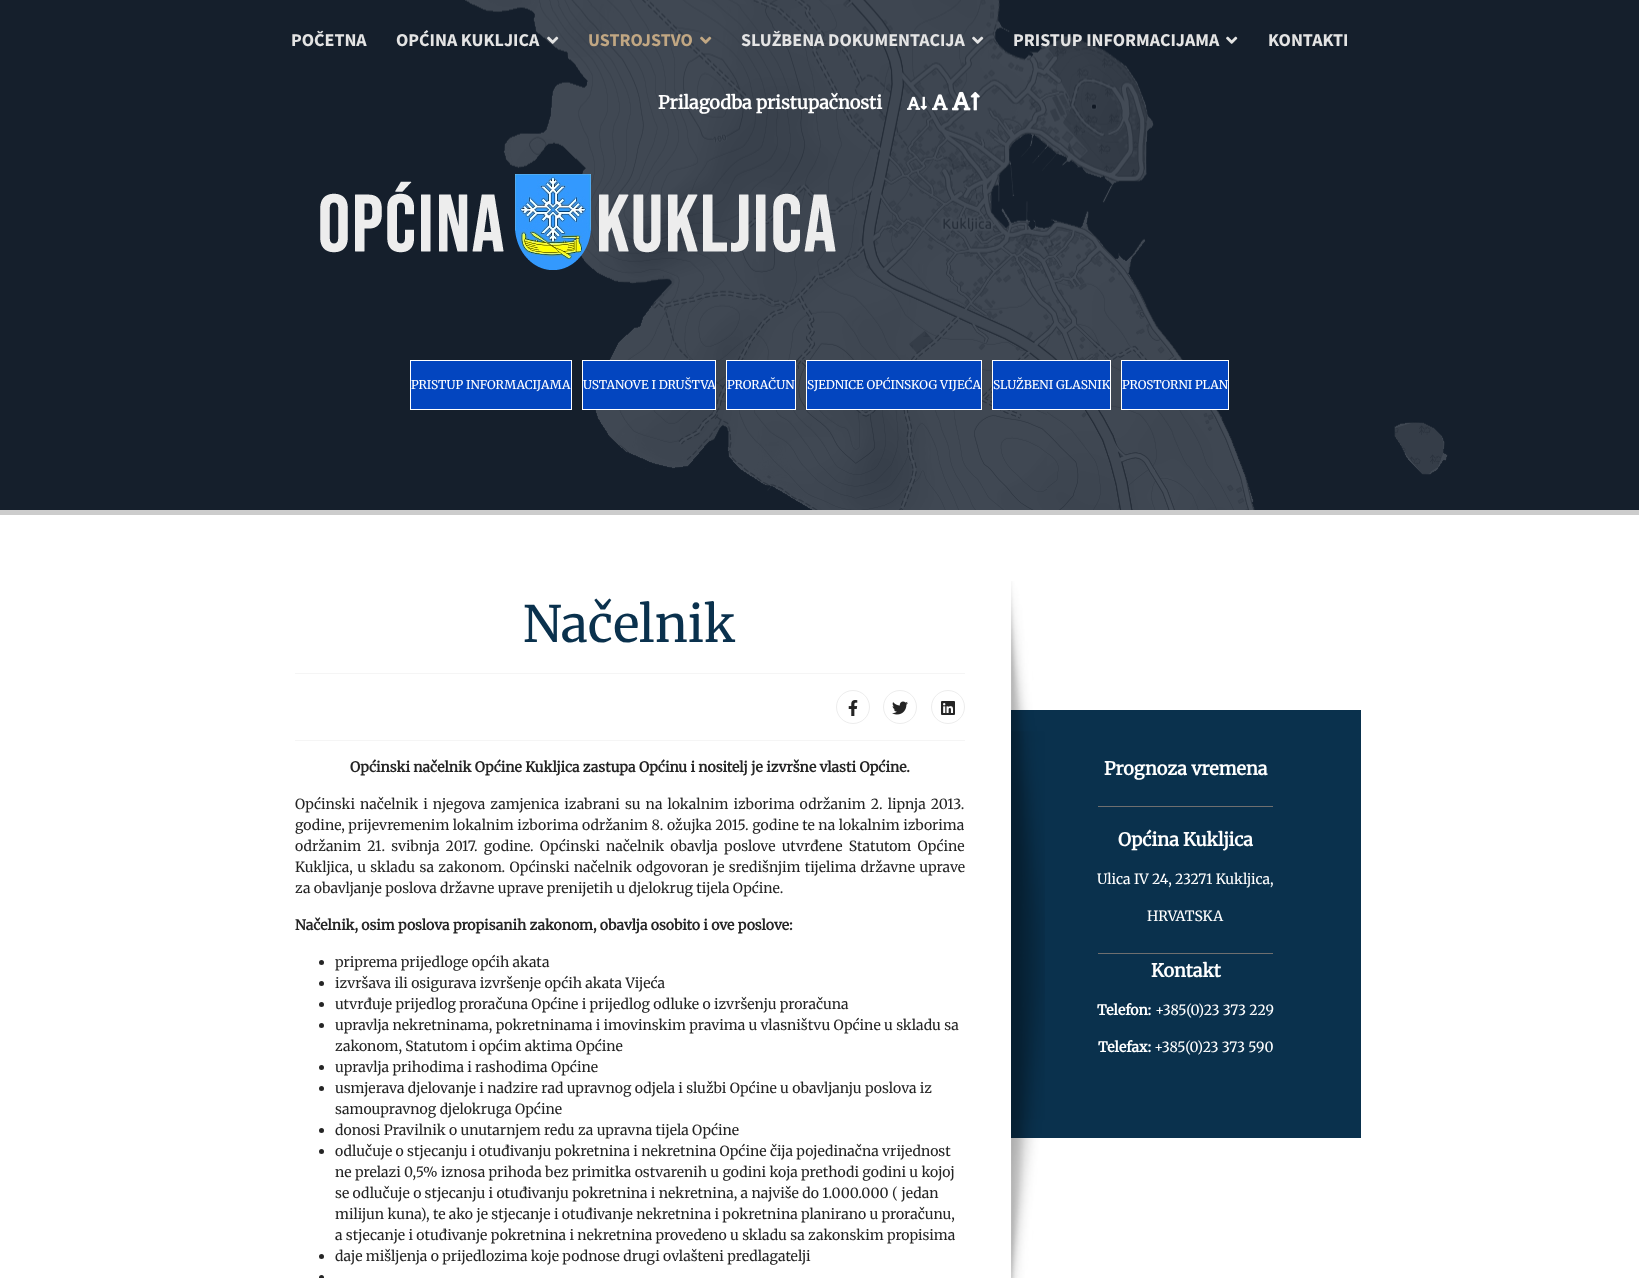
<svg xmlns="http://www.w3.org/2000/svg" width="1639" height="1278">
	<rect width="100%" height="100%" fill="#FFFFFF" />
	<rect x="0" y="0" width="1639" height="510" fill="#151F2C" />
	<text x="291" y="46" font-family="Source Sans Pro" font-size="18" font-weight="700" fill="#E4E4E4">POČETNA</text>
	<image x="465" y="0" width="983" height="510" href="assets/img5.png" />
	<text x="396" y="46" font-family="Source Sans Pro" font-size="18" font-weight="700" fill="#E4E4E4">OPĆINA KUKLJICA</text>
	<image x="547" y="36" width="12" height="8" href="assets/img1.png" />
	<text x="588" y="46" font-family="Source Sans Pro" font-size="18" font-weight="700" fill="#C1A783">USTROJSTVO</text>
	<image x="700" y="36" width="12" height="8" href="assets/img2.png" />
	<text x="741" y="46" font-family="Source Sans Pro" font-size="18" font-weight="700" fill="#E4E4E4">SLUŽBENA DOKUMENTACIJA</text>
	<image x="972" y="36" width="12" height="8" href="assets/img3.png" />
	<text x="1013" y="46" font-family="Source Sans Pro" font-size="18" font-weight="700" fill="#E4E4E4">PRISTUP INFORMACIJAMA</text>
	<image x="1226" y="36" width="12" height="8" href="assets/img4.png" />
	<text x="1268" y="46" font-family="Source Sans Pro" font-size="18" font-weight="700" fill="#E4E4E4">KONTAKTI</text>
	<rect x="0" y="510" width="1639" height="5" fill="#CCCCCC" />
	<text x="658" y="109" font-family="Merriweather" font-size="18" font-weight="700" fill="#FFFFFF">Prilagodba pristupačnosti</text>
	<image x="907" y="96" width="14" height="14" href="assets/img6.png" />
	<image x="920" y="96" width="7" height="14" href="assets/img7.png" />
	<image x="932" y="94" width="16" height="17" href="assets/img8.png" />
	<image x="952" y="91" width="19" height="20" href="assets/img9.png" />
	<image x="970" y="92" width="10" height="19" href="assets/img10.png" />
	<image x="320" y="174" width="516" height="96" href="assets/img11.png" />
	<rect x="410.5" y="360.5" width="161" height="49" fill="#0345BF" stroke="#FFFFFF" />
	<text x="411" y="389" font-family="Merriweather" font-size="12" font-weight="300" fill="#FFFFFF">PRISTUP INFORMACIJAMA</text>
	<rect x="582.5" y="360.5" width="133" height="49" fill="#0345BF" stroke="#FFFFFF" />
	<text x="583" y="389" font-family="Merriweather" font-size="12" font-weight="300" fill="#FFFFFF">USTANOVE I DRUŠTVA</text>
	<rect x="726.5" y="360.5" width="69" height="49" fill="#0345BF" stroke="#FFFFFF" />
	<text x="727" y="389" font-family="Merriweather" font-size="12" font-weight="300" fill="#FFFFFF">PRORAČUN</text>
	<rect x="806.5" y="360.5" width="175" height="49" fill="#0345BF" stroke="#FFFFFF" />
	<text x="807" y="389" font-family="Merriweather" font-size="12" font-weight="300" fill="#FFFFFF">SJEDNICE OPĆINSKOG VIJEĆA</text>
	<rect x="992.5" y="360.5" width="118" height="49" fill="#0345BF" stroke="#FFFFFF" />
	<text x="993" y="389" font-family="Merriweather" font-size="12" font-weight="300" fill="#FFFFFF">SLUŽBENI GLASNIK</text>
	<rect x="1121.5" y="360.5" width="107" height="49" fill="#0345BF" stroke="#FFFFFF" />
	<text x="1122" y="389" font-family="Merriweather" font-size="12" font-weight="300" fill="#FFFFFF">PROSTORNI PLAN</text>
	<text x="523" y="642" font-family="Merriweather" font-size="50" font-weight="300" fill="#0A314D">Načelnik</text>
	<rect x="295" y="673" width="670" height="1" fill="#F5F5F5" />
	<rect x="295" y="740" width="670" height="1" fill="#F5F5F5" />
	<circle cx="853" cy="707" r="16.5" fill="none" stroke="#EDEDED" />
	<image x="848" y="700" width="10" height="16" href="assets/img12.png" />
	<circle cx="900" cy="707" r="16.5" fill="none" stroke="#EDEDED" />
	<image x="892" y="701" width="16" height="14" href="assets/img13.png" />
	<circle cx="948" cy="707" r="16.5" fill="none" stroke="#EDEDED" />
	<image x="941" y="701" width="14" height="14" href="assets/img14.png" />
	<text x="350" y="772" font-family="Merriweather" font-size="14" font-weight="700" fill="#252525">Općinski načelnik Općine Kukljica zastupa Općinu i nositelj je izvršne vlasti Općine.</text>
	<g font-family="Merriweather" font-size="14" font-weight="300" fill="#252525">
		<text x="295" y="809" word-spacing="1.75">Općinski načelnik i njegova zamjenica izabrani su na lokalnim izborima održanim 2. lipnja 2013.</text>
		<text x="295" y="830" word-spacing="0.25">godine, prijevremenim lokalnim izborima održanim 8. ožujka 2015. godine te na lokalnim izborima</text>
		<text x="295" y="851" word-spacing="2.9">održanim 21. svibnja 2017. godine. Općinski načelnik obavlja poslove utvrđene Statutom Općine</text>
		<text x="295" y="872" word-spacing="1">Kukljica, u skladu sa zakonom. Općinski načelnik odgovoran je središnjim tijelima državne uprave</text>
		<text x="295" y="893">za obavljanje poslova državne uprave prenijetih u djelokrug tijela Općine.</text>
	</g>
	<text x="295" y="930" font-family="Merriweather" font-size="14" font-weight="700" fill="#252525">Načelnik, osim poslova propisanih zakonom, obavlja osobito i ove poslove:</text>
	<circle cx="321.5" cy="962.5" r="2.5" fill="#252525" />
	<text x="335" y="967" font-family="Merriweather" font-size="14" font-weight="300" fill="#252525">priprema prijedloge općih akata</text>
	<circle cx="321.5" cy="983.5" r="2.5" fill="#252525" />
	<text x="335" y="988" font-family="Merriweather" font-size="14" font-weight="300" fill="#252525">izvršava ili osigurava izvršenje općih akata Vijeća</text>
	<circle cx="321.5" cy="1004.5" r="2.5" fill="#252525" />
	<text x="335" y="1009" font-family="Merriweather" font-size="14" font-weight="300" fill="#252525">utvrđuje prijedlog proračuna Općine i prijedlog odluke o izvršenju proračuna</text>
	<circle cx="321.5" cy="1025.5" r="2.5" fill="#252525" />
	<g font-family="Merriweather" font-size="14" font-weight="300" fill="#252525">
		<text x="335" y="1030">upravlja nekretninama, pokretninama i imovinskim pravima u vlasništvu Općine u skladu sa</text>
		<text x="335" y="1051">zakonom, Statutom i općim aktima Općine</text>
	</g>
	<circle cx="321.5" cy="1067.5" r="2.5" fill="#252525" />
	<text x="335" y="1072" font-family="Merriweather" font-size="14" font-weight="300" fill="#252525">upravlja prihodima i rashodima Općine</text>
	<circle cx="321.5" cy="1088.5" r="2.5" fill="#252525" />
	<g font-family="Merriweather" font-size="14" font-weight="300" fill="#252525">
		<text x="335" y="1093">usmjerava djelovanje i nadzire rad upravnog odjela i službi Općine u obavljanju poslova iz</text>
		<text x="335" y="1114">samoupravnog djelokruga Općine</text>
	</g>
	<circle cx="321.5" cy="1130.5" r="2.5" fill="#252525" />
	<text x="335" y="1135" font-family="Merriweather" font-size="14" font-weight="300" fill="#252525">donosi Pravilnik o unutarnjem redu za upravna tijela Općine</text>
	<circle cx="321.5" cy="1151.5" r="2.5" fill="#252525" />
	<g font-family="Merriweather" font-size="14" font-weight="300" fill="#252525">
		<text x="335" y="1156">odlučuje o stjecanju i otuđivanju pokretnina i nekretnina Općine čija pojedinačna vrijednost</text>
		<text x="335" y="1177">ne prelazi 0,5% iznosa prihoda bez primitka ostvarenih u godini koja prethodi godini u kojoj</text>
		<text x="335" y="1198">se odlučuje o stjecanju i otuđivanju pokretnina i nekretnina, a najviše do 1.000.000 ( jedan</text>
		<text x="335" y="1219">milijun kuna), te ako je stjecanje i otuđivanje nekretnina i pokretnina planirano u proračunu,</text>
		<text x="335" y="1240">a stjecanje i otuđivanje pokretnina i nekretnina provedeno u skladu sa zakonskim propisima</text>
	</g>
	<circle cx="321.5" cy="1256.5" r="2.5" fill="#252525" />
	<text x="335" y="1261" font-family="Merriweather" font-size="14" font-weight="300" fill="#252525">daje mišljenja o prijedlozima koje podnose drugi ovlašteni predlagatelji</text>
	<circle cx="321.5" cy="1277.5" r="2.5" fill="#252525" />
	<rect x="1011" y="710" width="350" height="428" fill="#0A314D" />
	<image x="1011" y="581" width="34" height="697" href="assets/img15.png" />
	<text x="1104" y="775" font-family="Merriweather" font-size="18" font-weight="700" fill="#FFFFFF">Prognoza vremena</text>
	<rect x="1098" y="806" width="175" height="1" fill="#6F6F6F" />
	<text x="1118" y="846" font-family="Merriweather" font-size="18" font-weight="700" fill="#FFFFFF">Općina Kukljica</text>
	<g font-family="Merriweather" font-size="14" font-weight="300" fill="#FFFFFF">
		<text x="1097" y="884">Ulica IV 24, 23271 Kukljica,</text>
		<text x="1147" y="921">HRVATSKA</text>
	</g>
	<rect x="1098" y="953" width="175" height="1" fill="#6F6F6F" />
	<text x="1151" y="977" font-family="Merriweather" font-size="18" font-weight="700" fill="#FFFFFF">Kontakt</text>
	<text x="1097" y="1015" font-family="Merriweather" font-size="14" font-weight="700" fill="#FFFFFF">Telefon:</text>
	<text x="1155" y="1015" font-family="Merriweather" font-size="14" font-weight="300" fill="#FFFFFF">+385(0)23 373 229</text>
	<text x="1098" y="1052" font-family="Merriweather" font-size="14" font-weight="700" fill="#FFFFFF">Telefax:</text>
	<text x="1154" y="1052" font-family="Merriweather" font-size="14" font-weight="300" fill="#FFFFFF">+385(0)23 373 590</text>
</svg>
